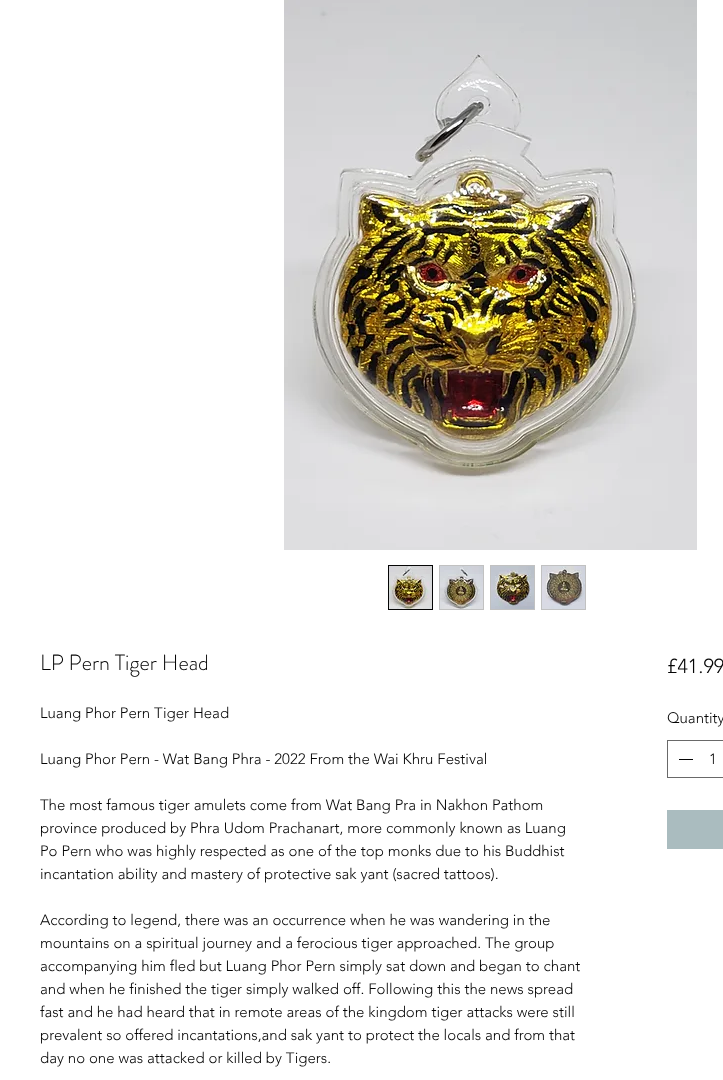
<svg xmlns="http://www.w3.org/2000/svg" width="723" height="1080">
	<rect width="100%" height="100%" fill="#FFFFFF" />
	<image x="284" y="0" width="413" height="550" href="assets/img1.png" />
	<rect x="388.5" y="565.5" width="44" height="44" fill="none" stroke="#050505" />
	<image x="389" y="566" width="43" height="43" href="assets/img2.png" />
	<rect x="439.5" y="565.5" width="44" height="44" fill="none" stroke="#C1C1C1" />
	<image x="440" y="566" width="43" height="43" href="assets/img3.png" />
	<rect x="490.5" y="565.5" width="44" height="44" fill="none" stroke="#C1C1C1" />
	<image x="491" y="566" width="43" height="43" href="assets/img4.png" />
	<rect x="541.5" y="565.5" width="44" height="44" fill="none" stroke="#C1C1C1" />
	<image x="542" y="566" width="43" height="43" href="assets/img5.png" />
	<text x="40" y="670" font-family="'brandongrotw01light'" font-size="22" font-weight="300" fill="#050505">LP Pern Tiger Head</text>
	<g font-family="'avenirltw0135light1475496'" font-size="15" font-weight="300" fill="#050505">
		<text x="40" y="718">Luang Phor Pern Tiger Head</text>
		<text x="40" y="764">Luang Phor Pern - Wat Bang Phra - 2022 From the Wai Khru Festival</text>
		<text x="40" y="810">The most famous tiger amulets come from Wat Bang Pra in Nakhon Pathom</text>
		<text x="40" y="833">province produced by Phra Udom Prachanart, more commonly known as Luang</text>
		<text x="40" y="856">Po Pern who was highly respected as one of the top monks due to his Buddhist</text>
		<text x="40" y="879">incantation ability and mastery of protective sak yant (sacred tattoos).</text>
		<text x="40" y="925">According to legend, there was an occurrence when he was wandering in the</text>
		<text x="40" y="948">mountains on a spiritual journey and a ferocious tiger approached. The group</text>
		<text x="40" y="971">accompanying him fled but Luang Phor Pern simply sat down and began to chant</text>
		<text x="40" y="994">and when he finished the tiger simply walked off. Following this the news spread</text>
		<text x="40" y="1017">fast and he had heard that in remote areas of the kingdom tiger attacks were still</text>
		<text x="40" y="1040">prevalent so offered incantations,and sak yant to protect the locals and from that</text>
		<text x="40" y="1063">day no one was attacked or killed by Tigers.</text>
	</g>
	<text x="667" y="673" font-family="'avenirltw0135light1475496'" font-size="20" font-weight="300" fill="#050505">£41.99</text>
	<text x="667" y="723" font-family="'avenirltw0135light1475496'" font-size="15" font-weight="300" fill="#050505">Quantity</text>
	<rect x="667.5" y="740.5" width="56" height="37" fill="none" stroke="#696969" />
	<rect x="679" y="759" width="14" height="1" fill="#050505" />
	<text x="709" y="764" font-family="'avenirltw0135light1475496'" font-size="15" font-weight="300" fill="#050505">1</text>
	<rect x="667" y="810" width="56" height="39" fill="#AABCBF" />
</svg>
